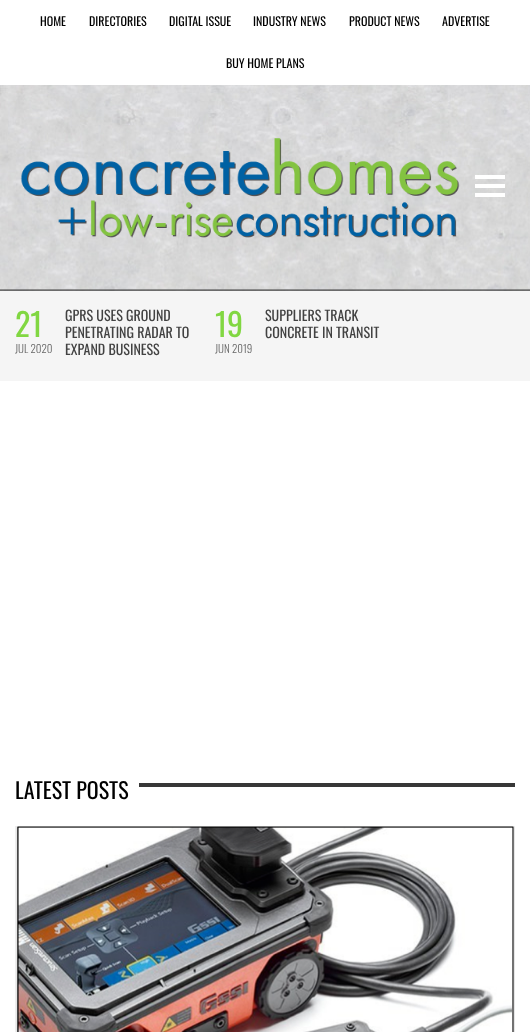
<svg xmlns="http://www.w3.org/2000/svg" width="530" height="1032">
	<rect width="100%" height="100%" fill="#FFFFFF" />
	<g font-family="Oswald" font-size="12" fill="#000000">
		<text x="40" y="26">HOME</text>
		<text x="89" y="26">DIRECTORIES</text>
		<text x="169" y="26">DIGITAL ISSUE</text>
		<text x="253" y="26">INDUSTRY NEWS</text>
		<text x="349" y="26">PRODUCT NEWS</text>
		<text x="442" y="26">ADVERTISE</text>
		<text x="226" y="68">BUY HOME PLANS</text>
	</g>
	<image x="0" y="85" width="530" height="206" href="assets/img1.png" />
	<image x="20" y="138" width="440" height="100" href="assets/img2.png" />
	<rect x="475" y="175" width="30" height="4" fill="#FFFFFF" />
	<rect x="475" y="184" width="30" height="4" fill="#FFFFFF" />
	<rect x="475" y="193" width="30" height="4" fill="#FFFFFF" />
	<rect x="0" y="289" width="530" height="2" fill="#000000" fill-opacity="0.5" />
	<rect x="0" y="289" width="530" height="1" fill="#FFFFFF" fill-opacity="0.21" />
	<rect x="0" y="291" width="530" height="90" fill="#F5F5F5" />
	<text x="15" y="337" font-family="Oswald" font-size="32" fill="#81D742">21</text>
	<text x="15" y="353" font-family="Oswald" font-size="11" font-weight="300" fill="#666666">JUL 2020</text>
	<g font-family="Oswald" font-size="14" fill="#424242">
		<text x="65" y="321">GPRS USES GROUND</text>
		<text x="65" y="338">PENETRATING RADAR TO</text>
		<text x="65" y="355">EXPAND BUSINESS</text>
	</g>
	<text x="215" y="337" font-family="Oswald" font-size="32" fill="#81D742">19</text>
	<text x="215" y="353" font-family="Oswald" font-size="11" font-weight="300" fill="#666666">JUN 2019</text>
	<g font-family="Oswald" font-size="14" fill="#424242">
		<text x="265" y="321">SUPPLIERS TRACK</text>
		<text x="265" y="338">CONCRETE IN TRANSIT</text>
	</g>
	<text x="15" y="799" font-family="Oswald" font-size="22" fill="#000000">LATEST POSTS</text>
	<rect x="139" y="783" width="376" height="4" fill="#373737" />
	<rect x="15" y="826" width="500" height="206" fill="#EEEEEE" />
	<image x="16" y="826" width="499" height="206" href="assets/img3.png" />
</svg>
